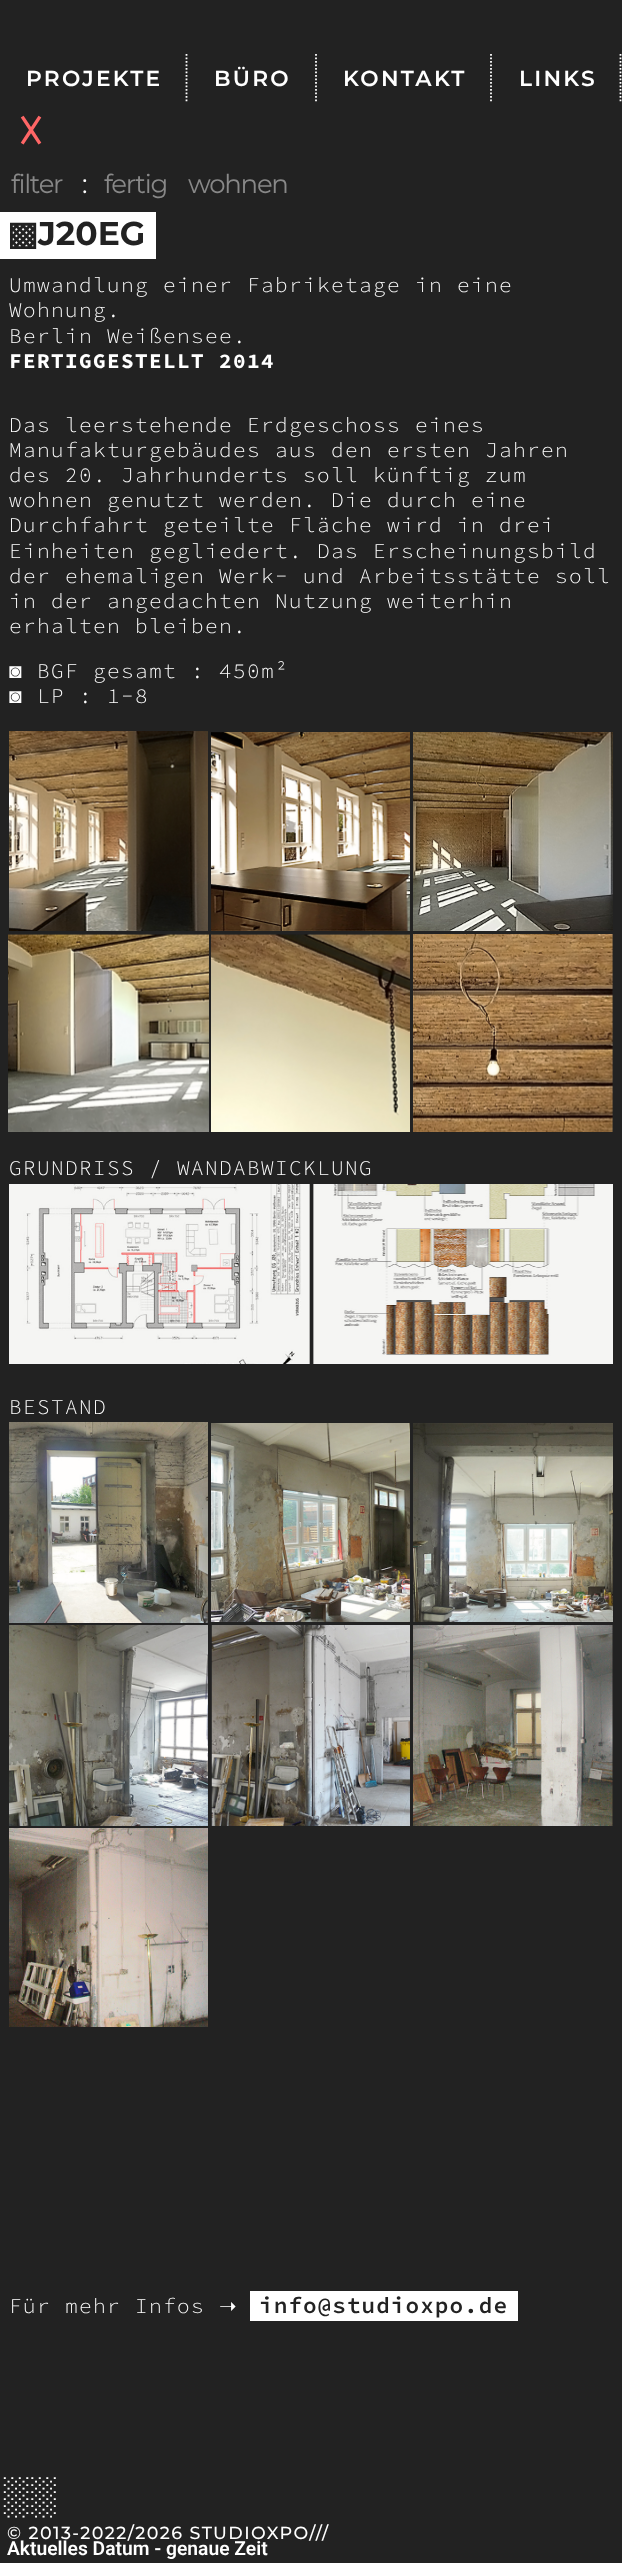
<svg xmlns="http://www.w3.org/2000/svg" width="622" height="2563">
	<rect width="100%" height="100%" fill="#222222" />
	<text x="26" y="86" font-family="Montserrat" font-size="21.75" font-weight="600" letter-spacing="2.25" fill="#FFFFFF">PROJEKTE</text>
	<path d="M186.5 54V103" fill="none" stroke="#FFFFFF" stroke-width="1.8" stroke-dasharray="1.75 1.75" />
	<text x="214" y="86" font-family="Montserrat" font-size="21.75" font-weight="600" letter-spacing="2.25" fill="#FFFFFF">BÜRO</text>
	<path d="M316 54V103" fill="none" stroke="#FFFFFF" stroke-width="1.8" stroke-dasharray="1.75 1.75" />
	<text x="343" y="86" font-family="Montserrat" font-size="21.75" font-weight="600" letter-spacing="2.25" fill="#FFFFFF">KONTAKT</text>
	<path d="M620.5 54V103" fill="none" stroke="#FFFFFF" stroke-width="1.8" stroke-dasharray="1.75 1.75" />
	<path d="M491 54V103" fill="none" stroke="#FFFFFF" stroke-width="1.8" stroke-dasharray="1.75 1.75" />
	<text x="519" y="86" font-family="Montserrat" font-size="21.75" font-weight="600" letter-spacing="2.25" fill="#FFFFFF">LINKS</text>
	<text x="18" y="144" font-family="DejaVu Sans" font-size="38" fill="#FF6666">𐌗</text>
	<text x="11" y="193" font-family="Montserrat" font-size="26" letter-spacing="-1.25" fill="#888888">filter</text>
	<text x="82" y="193" font-family="Montserrat" font-size="26" letter-spacing="-1.25" fill="#FFFFFF">:</text>
	<g font-family="Montserrat" font-size="26" letter-spacing="-1.25" fill="#888888">
		<text x="104" y="193">fertig</text>
		<text x="188" y="193">wohnen</text>
	</g>
	<rect x="0" y="212" width="156" height="47" fill="#FFFFFF" />
	<text x="7" y="245" font-family="DejaVu Sans" font-size="33" font-weight="700" fill="#222222">▩</text>
	<text x="38" y="245" font-family="Montserrat" font-size="33" font-weight="700" fill="#222222">J20EG</text>
	<g font-family="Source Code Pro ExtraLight" font-size="21" font-weight="300" letter-spacing="1.4" fill="#FFFFFF">
		<text x="9" y="292">Umwandlung einer Fabriketage in eine</text>
		<text x="9" y="317">Wohnung.</text>
		<text x="9" y="343">Berlin Weißensee.</text>
	</g>
	<text x="9" y="368" font-family="Source Code Pro ExtraLight" font-size="21" font-weight="700" letter-spacing="1.4" fill="#FFFFFF">FERTIGGESTELLT 2014</text>
	<g font-family="Source Code Pro ExtraLight" font-size="21" font-weight="300" letter-spacing="1.4" fill="#FFFFFF">
		<text x="9" y="432">Das leerstehende Erdgeschoss eines</text>
		<text x="9" y="457">Manufakturgebäudes aus den ersten Jahren</text>
		<text x="9" y="482">des 20. Jahrhunderts soll künftig zum</text>
		<text x="9" y="507">wohnen genutzt werden. Die durch eine</text>
		<text x="9" y="532">Durchfahrt geteilte Fläche wird in drei</text>
		<text x="9" y="558">Einheiten gegliedert. Das Erscheinungsbild</text>
		<text x="9" y="583">der ehemaligen Werk- und Arbeitsstätte soll</text>
		<text x="9" y="608">in der angedachten Nutzung weiterhin</text>
		<text x="9" y="633">erhalten bleiben.</text>
	</g>
	<text x="9" y="678" font-family="Liberation Serif" font-size="21" letter-spacing="1.4" fill="#FFFFFF">◙</text>
	<text x="37" y="678" font-family="Source Code Pro ExtraLight" font-size="21" font-weight="300" letter-spacing="1.4" fill="#FFFFFF">BGF gesamt : 450m²</text>
	<text x="9" y="703" font-family="Liberation Serif" font-size="21" letter-spacing="1.4" fill="#FFFFFF">◙</text>
	<text x="37" y="703" font-family="Source Code Pro ExtraLight" font-size="21" font-weight="300" letter-spacing="1.4" fill="#FFFFFF">LP : 1-8</text>
	<image x="9" y="731" width="199" height="200" href="assets/img1.png" />
	<image x="211" y="732" width="199" height="199" href="assets/img2.png" />
	<image x="413" y="732" width="200" height="199" href="assets/img3.png" />
	<image x="8" y="934" width="201" height="198" href="assets/img4.png" />
	<image x="211" y="934" width="199" height="198" href="assets/img5.png" />
	<image x="413" y="934" width="200" height="198" href="assets/img6.png" />
	<text x="9" y="1175" font-family="Source Code Pro ExtraLight" font-size="21" font-weight="300" letter-spacing="1.4" fill="#FFFFFF">GRUNDRISS / WANDABWICKLUNG</text>
	<image x="9" y="1184" width="301" height="180" href="assets/img7.png" />
	<image x="313" y="1184" width="300" height="180" href="assets/img8.png" />
	<text x="9" y="1414" font-family="Source Code Pro ExtraLight" font-size="21" font-weight="300" letter-spacing="1.4" fill="#FFFFFF">BESTAND</text>
	<image x="9" y="1422" width="199" height="201" href="assets/img9.png" />
	<image x="211" y="1423" width="199" height="199" href="assets/img10.png" />
	<image x="413" y="1423" width="200" height="199" href="assets/img11.png" />
	<image x="9" y="1625" width="199" height="201" href="assets/img12.png" />
	<image x="211" y="1625" width="199" height="201" href="assets/img13.png" />
	<image x="413" y="1625" width="200" height="201" href="assets/img14.png" />
	<image x="9" y="1828" width="199" height="199" href="assets/img15.png" />
	<text x="9" y="2313" font-family="Source Code Pro ExtraLight" font-size="21" font-weight="300" letter-spacing="1.4" fill="#FFFFFF">Für mehr Infos</text>
	<text x="219" y="2313" font-family="DejaVu Sans" font-size="21" letter-spacing="1.4" fill="#FFFFFF">➝</text>
	<rect x="250" y="2291" width="268" height="30" fill="#FFFFFF" />
	<text x="259" y="2313" font-family="Source Code Pro ExtraLight" font-size="22.75" font-weight="600" letter-spacing="1" fill="#222222">info@studioxpo.de</text>
	<text x="2" y="2508" font-family="Liberation Serif" font-size="37" font-weight="700" letter-spacing="1.4" fill="#FFFFFF">░░</text>
	<text x="7" y="2539" font-family="Montserrat" font-size="17.5" font-weight="500" letter-spacing="1.4" fill="#FFFFFF">© 2013-2022/2026 STUDIOXPO///</text>
	<text x="7" y="2555" font-family="Roboto" font-size="19.25" font-weight="600" fill="#FFFFFF">Aktuelles Datum - genaue Zeit</text>
</svg>
